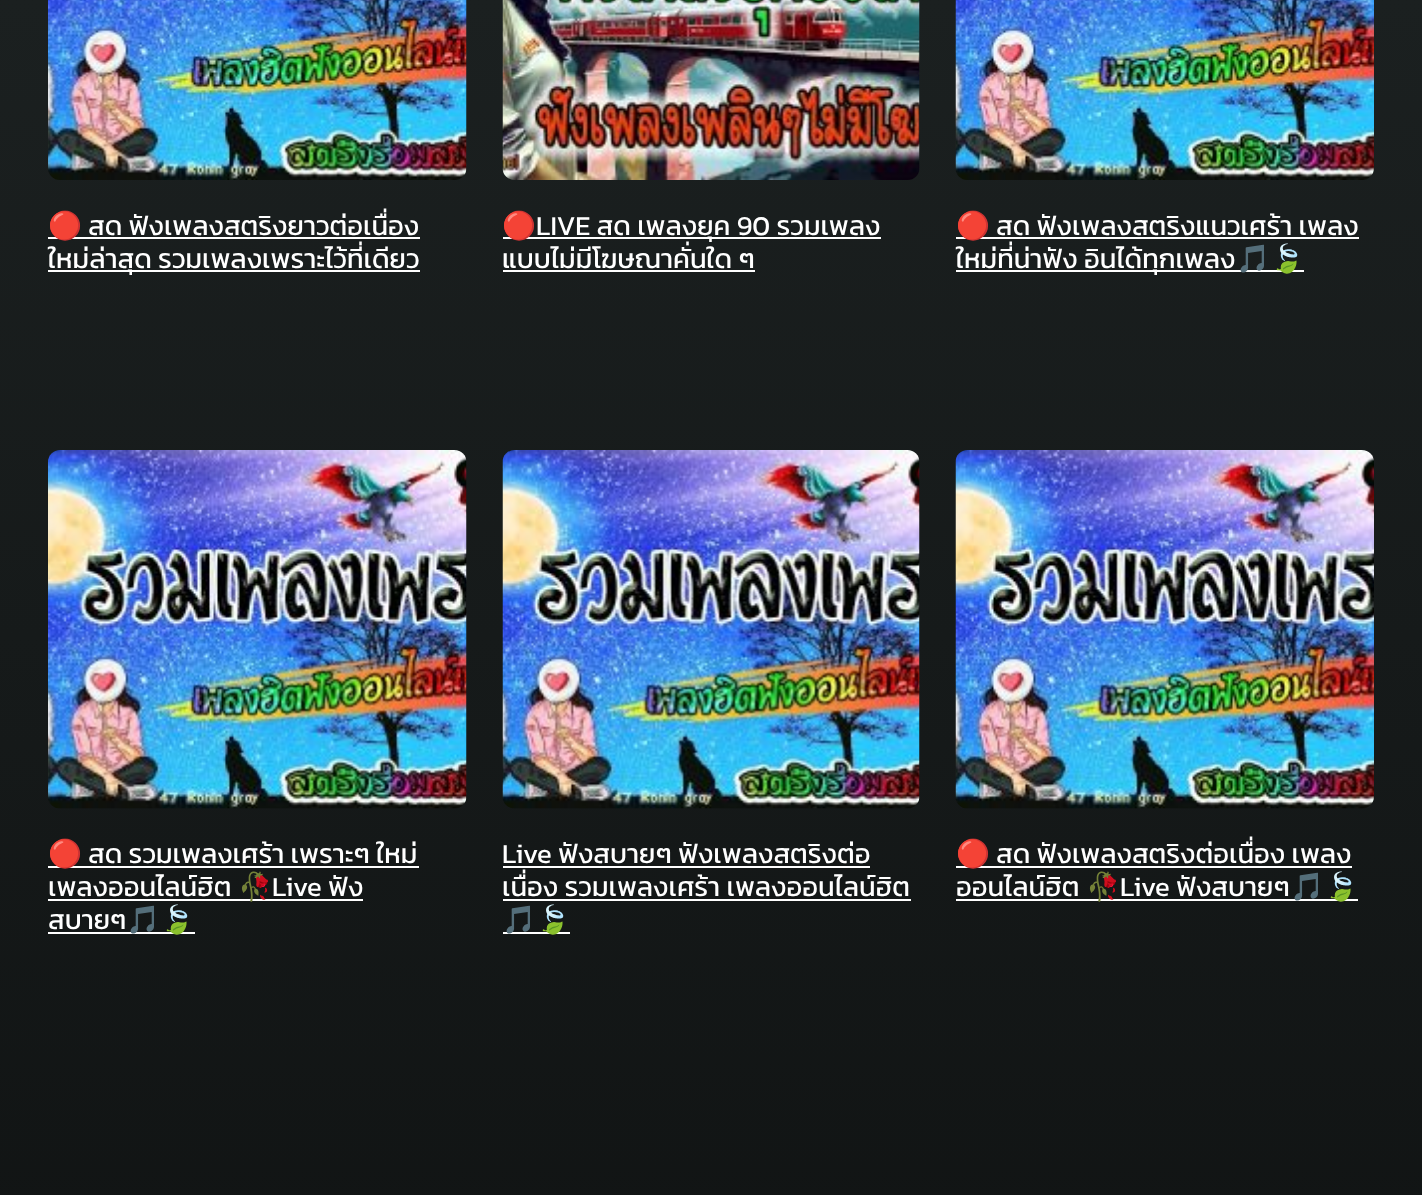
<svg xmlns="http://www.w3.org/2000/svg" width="1422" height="1195">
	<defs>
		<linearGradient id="g1" gradientUnits="userSpaceOnUse" x1="711" y1="-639" x2="711" y2="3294"><stop offset="0" stop-color="#202626" /><stop offset="1" stop-color="#010101" /></linearGradient>
	</defs>
	<rect width="100%" height="100%" fill="#FFFFFF" />
	<rect x="0" y="0" width="1422" height="1195" fill="url(#g1)" />
	<image x="48" y="0" width="419" height="180" href="assets/img1.png" />
	<rect x="48" y="237" width="372" height="2" fill="#FFFFFF" />
	<text x="48" y="235" font-family="Noto Color Emoji" font-size="27.4" fill="#FFFFFF">🔴</text>
	<text x="88" y="235" font-family="Kanit" font-size="27.4" fill="#FFFFFF">สด ฟังเพลงสตริงยาวต่อเนื่อง</text>
	<rect x="48" y="270" width="372" height="2" fill="#FFFFFF" />
	<text x="48" y="268" font-family="Kanit" font-size="27.4" fill="#FFFFFF">ใหม่ล่าสุด รวมเพลงเพราะไว้ที่เดียว</text>
	<image x="502" y="0" width="418" height="180" href="assets/img2.png" />
	<rect x="503" y="237" width="378" height="2" fill="#FFFFFF" />
	<text x="502" y="235" font-family="Noto Color Emoji" font-size="27.4" fill="#FFFFFF">🔴</text>
	<g font-family="Kanit" font-size="27.4" fill="#FFFFFF">
		<text x="536" y="235">LIVE สด เพลงยุค 90 รวมเพลง</text>
		<text x="502" y="268">แบบไม่มีโฆษณาคั่นใด ๆ</text>
	</g>
	<rect x="503" y="270" width="252" height="2" fill="#FFFFFF" />
	<image x="955" y="0" width="419" height="180" href="assets/img3.png" />
	<rect x="956" y="237" width="403" height="2" fill="#FFFFFF" />
	<text x="956" y="235" font-family="Noto Color Emoji" font-size="27.4" fill="#FFFFFF">🔴</text>
	<text x="996" y="235" font-family="Kanit" font-size="27.4" fill="#FFFFFF">สด ฟังเพลงสตริงแนวเศร้า เพลง</text>
	<rect x="956" y="270" width="348" height="2" fill="#FFFFFF" />
	<text x="956" y="268" font-family="Kanit" font-size="27.4" fill="#FFFFFF">ใหม่ที่น่าฟัง อินได้ทุกเพลง</text>
	<text x="1236" y="268" font-family="Noto Color Emoji" font-size="27.4" fill="#FFFFFF">🎵🍃</text>
	<image x="48" y="450" width="419" height="359" href="assets/img4.png" />
	<rect x="48" y="866" width="371" height="2" fill="#FFFFFF" />
	<text x="48" y="863" font-family="Noto Color Emoji" font-size="27.4" fill="#FFFFFF">🔴</text>
	<g font-family="Kanit" font-size="27.4" fill="#FFFFFF">
		<text x="88" y="863">สด รวมเพลงเศร้า เพราะๆ ใหม่</text>
		<text x="48" y="896">เพลงออนไลน์ฮิต</text>
	</g>
	<rect x="48" y="899" width="315" height="2" fill="#FFFFFF" />
	<text x="238" y="896" font-family="Noto Color Emoji" font-size="27.4" fill="#FFFFFF">🥀</text>
	<g font-family="Kanit" font-size="27.4" fill="#FFFFFF">
		<text x="272" y="896">Live ฟัง</text>
		<text x="48" y="929">สบายๆ</text>
	</g>
	<rect x="48" y="932" width="147" height="2" fill="#FFFFFF" />
	<text x="126" y="929" font-family="Noto Color Emoji" font-size="27.4" fill="#FFFFFF">🎵🍃</text>
	<image x="502" y="450" width="418" height="359" href="assets/img5.png" />
	<text x="502" y="863" font-family="Kanit" font-size="27.4" fill="#FFFFFF">Live ฟังสบายๆ ฟังเพลงสตริงต่อ</text>
	<rect x="503" y="866" width="367" height="2" fill="#FFFFFF" />
	<text x="502" y="896" font-family="Kanit" font-size="27.4" fill="#FFFFFF">เนื่อง รวมเพลงเศร้า เพลงออนไลน์ฮิต</text>
	<rect x="503" y="899" width="408" height="2" fill="#FFFFFF" />
	<rect x="503" y="932" width="67" height="2" fill="#FFFFFF" />
	<text x="502" y="929" font-family="Noto Color Emoji" font-size="27.4" fill="#FFFFFF">🎵🍃</text>
	<image x="955" y="450" width="419" height="359" href="assets/img6.png" />
	<rect x="956" y="866" width="396" height="2" fill="#FFFFFF" />
	<text x="956" y="863" font-family="Noto Color Emoji" font-size="27.4" fill="#FFFFFF">🔴</text>
	<g font-family="Kanit" font-size="27.4" fill="#FFFFFF">
		<text x="996" y="863">สด ฟังเพลงสตริงต่อเนื่อง เพลง</text>
		<text x="956" y="896">ออนไลน์ฮิต</text>
	</g>
	<rect x="956" y="899" width="402" height="2" fill="#FFFFFF" />
	<text x="1086" y="896" font-family="Noto Color Emoji" font-size="27.4" fill="#FFFFFF">🥀</text>
	<text x="1120" y="896" font-family="Kanit" font-size="27.4" fill="#FFFFFF">Live ฟังสบายๆ</text>
	<text x="1290" y="896" font-family="Noto Color Emoji" font-size="27.4" fill="#FFFFFF">🎵🍃</text>
</svg>
